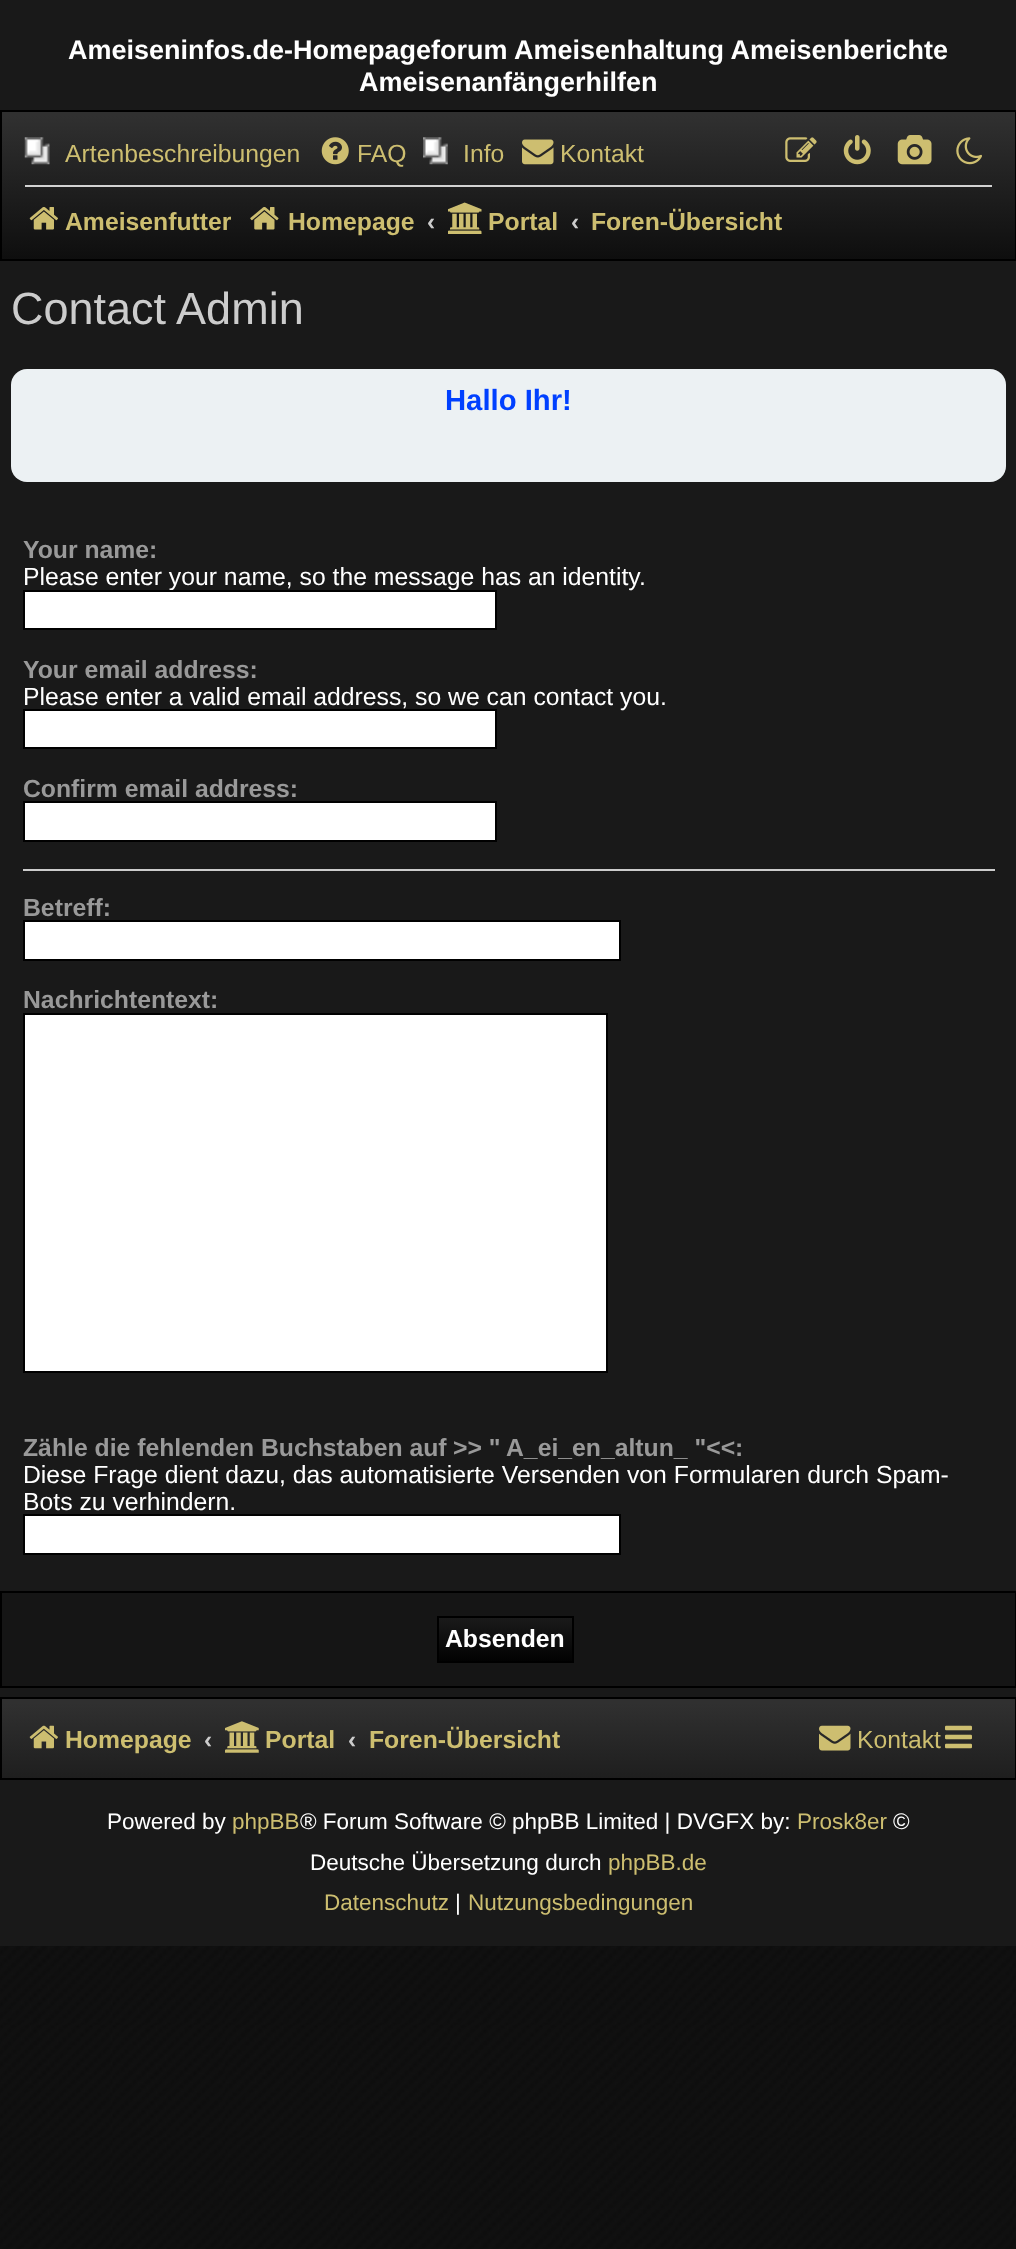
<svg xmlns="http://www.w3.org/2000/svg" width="1016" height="2249">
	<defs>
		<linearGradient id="g1" gradientUnits="userSpaceOnUse" x1="509" y1="112" x2="509" y2="319"><stop offset="0" stop-color="#303030" /><stop offset="0.02" stop-color="#303030" /><stop offset="1" stop-color="#000000" /></linearGradient>
		<linearGradient id="g2" gradientUnits="userSpaceOnUse" x1="505" y1="1618" x2="505" y2="1661"><stop offset="0" stop-color="#1A1A1A" /><stop offset="1" stop-color="#020202" /></linearGradient>
		<linearGradient id="g3" gradientUnits="userSpaceOnUse" x1="509" y1="1699" x2="509" y2="1906"><stop offset="0" stop-color="#303030" /><stop offset="0.02" stop-color="#303030" /><stop offset="1" stop-color="#000000" /></linearGradient>
	</defs>
	<rect width="100%" height="100%" fill="#FFFFFF" />
	<image x="0" y="1946" width="1016" height="303" href="assets/img1.png" />
	<rect x="0" y="0" width="1016" height="1946" fill="#191919" />
	<g font-family="Liberation Sans" font-size="27" font-weight="700" fill="#FFFFFF">
		<text x="68" y="59">Ameiseninfos.de-Homepageforum</text>
		<text x="514" y="59">Ameisenhaltung Ameisenberichte</text>
		<text x="359" y="91">Ameisenanfängerhilfen</text>
	</g>
	<rect x="2" y="112" width="1013" height="1" fill="#303030" />
	<rect x="2" y="113" width="1013" height="146" fill="url(#g1)" />
	<rect x="1" y="111" width="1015" height="149" fill="none" stroke="#000000" stroke-width="2" />
	<image x="24" y="137" width="26" height="28" href="assets/img2.png" />
	<text x="65" y="162" font-family="Liberation Sans" font-size="24.75" fill="#CDBE70">Artenbeschreibungen</text>
	<image x="321" y="137" width="28" height="28" href="assets/img3.png" />
	<text x="357" y="162" font-family="Liberation Sans" font-size="24.75" fill="#CDBE70">FAQ</text>
	<image x="423" y="137" width="25" height="28" href="assets/img4.png" />
	<text x="463" y="162" font-family="Liberation Sans" font-size="24.75" fill="#CDBE70">Info</text>
	<image x="522" y="139" width="32" height="26" href="assets/img5.png" />
	<text x="560" y="162" font-family="Liberation Sans" font-size="24.75" fill="#CDBE70">Kontakt</text>
	<image x="785" y="137" width="32" height="25" href="assets/img6.png" />
	<image x="843" y="135" width="28" height="30" href="assets/img7.png" />
	<image x="897" y="135" width="35" height="30" href="assets/img8.png" />
	<image x="956" y="137" width="26" height="28" href="assets/img9.png" />
	<rect x="25" y="185" width="967" height="2" fill="#D2D2D2" />
	<image x="29" y="207" width="29" height="23" href="assets/img10.png" />
	<text x="65" y="230" font-family="Liberation Sans" font-size="24.75" font-weight="700" fill="#CDBE70">Ameisenfutter</text>
	<image x="250" y="207" width="29" height="23" href="assets/img11.png" />
	<text x="288" y="230" font-family="Liberation Sans" font-size="24.75" font-weight="700" fill="#CDBE70">Homepage</text>
	<text x="427" y="230" font-family="Liberation Sans" font-size="24.75" font-weight="700" fill="#CCCCCC">‹</text>
	<image x="448" y="202" width="34" height="32" href="assets/img12.png" />
	<text x="488" y="230" font-family="Liberation Sans" font-size="24.75" font-weight="700" fill="#CDBE70">Portal</text>
	<text x="571" y="230" font-family="Liberation Sans" font-size="24.75" font-weight="700" fill="#CCCCCC">‹</text>
	<text x="591" y="230" font-family="Liberation Sans" font-size="24.75" font-weight="700" fill="#CDBE70">Foren-Übersicht</text>
	<text x="11" y="324" font-family="Liberation Sans" font-size="45" fill="#CCCCCC">Contact Admin</text>
	<rect x="11" y="369" width="995" height="113" rx="16" fill="#ECF1F3" />
	<text x="445" y="410" font-family="Liberation Sans" font-size="29.25" font-weight="700" fill="#0040FF">Hallo Ihr!</text>
	<text x="23" y="558" font-family="Liberation Sans" font-size="24.75" font-weight="700" fill="#999999">Your name:</text>
	<text x="23" y="585" font-family="Liberation Sans" font-size="24.75" fill="#FFFFFF">Please enter your name, so the message has an identity.</text>
	<rect x="24" y="591" width="472" height="38" fill="#FFFFFF" stroke="#000000" stroke-width="2" />
	<text x="23" y="678" font-family="Liberation Sans" font-size="24.75" font-weight="700" fill="#999999">Your email address:</text>
	<text x="23" y="705" font-family="Liberation Sans" font-size="24.75" fill="#FFFFFF">Please enter a valid email address, so we can contact you.</text>
	<rect x="24" y="710" width="472" height="38" fill="#FFFFFF" stroke="#000000" stroke-width="2" />
	<text x="23" y="797" font-family="Liberation Sans" font-size="24.75" font-weight="700" fill="#999999">Confirm email address:</text>
	<rect x="24" y="802" width="472" height="39" fill="#FFFFFF" stroke="#000000" stroke-width="2" />
	<rect x="23" y="869" width="972" height="2" fill="#CCCCCC" />
	<text x="23" y="916" font-family="Liberation Sans" font-size="24.75" font-weight="700" fill="#999999">Betreff:</text>
	<rect x="24" y="921" width="596" height="39" fill="#FFFFFF" stroke="#000000" stroke-width="2" />
	<text x="23" y="1008" font-family="Liberation Sans" font-size="24.75" font-weight="700" fill="#999999">Nachrichtentext:</text>
	<rect x="24" y="1014" width="583" height="358" fill="#FFFFFF" stroke="#000000" stroke-width="2" />
	<g font-family="Liberation Sans" font-size="24.75" font-weight="700" fill="#999999">
		<text x="23" y="1456">Zähle die fehlenden Buchstaben auf</text>
		<text x="453" y="1456">&gt;&gt; "</text>
		<text x="506" y="1456">A_ei_en_altun_ "&lt;&lt;:</text>
	</g>
	<g font-family="Liberation Sans" font-size="24.75" fill="#FFFFFF">
		<text x="23" y="1483">Diese Frage dient dazu, das automatisierte Versenden von Formularen durch Spam-</text>
		<text x="23" y="1510">Bots zu verhindern.</text>
	</g>
	<rect x="24" y="1515" width="596" height="39" fill="#FFFFFF" stroke="#000000" stroke-width="2" />
	<rect x="1" y="1592" width="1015" height="95" fill="#151515" stroke="#000000" stroke-width="2" />
	<rect x="439" y="1618" width="133" height="43" fill="url(#g2)" />
	<rect x="438" y="1617" width="135" height="45" fill="none" stroke="#000000" stroke-width="2" />
	<text x="445" y="1647" font-family="Liberation Sans" font-size="24.75" font-weight="700" fill="#FFFFFF">Absenden</text>
	<rect x="2" y="1699" width="1013" height="79" fill="url(#g3)" />
	<rect x="1" y="1698" width="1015" height="81" fill="none" stroke="#000000" stroke-width="2" />
	<image x="29" y="1725" width="29" height="24" href="assets/img13.png" />
	<text x="65" y="1748" font-family="Liberation Sans" font-size="24.75" font-weight="700" fill="#CDBE70">Homepage</text>
	<text x="204" y="1748" font-family="Liberation Sans" font-size="24.75" font-weight="700" fill="#CCCCCC">‹</text>
	<image x="225" y="1721" width="34" height="32" href="assets/img14.png" />
	<text x="265" y="1748" font-family="Liberation Sans" font-size="24.75" font-weight="700" fill="#CDBE70">Portal</text>
	<text x="348" y="1748" font-family="Liberation Sans" font-size="24.75" font-weight="700" fill="#CCCCCC">‹</text>
	<text x="369" y="1748" font-family="Liberation Sans" font-size="24.75" font-weight="700" fill="#CDBE70">Foren-Übersicht</text>
	<image x="819" y="1725" width="32" height="26" href="assets/img15.png" />
	<text x="857" y="1748" font-family="Liberation Sans" font-size="24.75" fill="#CDBE70">Kontakt</text>
	<image x="945" y="1725" width="27" height="24" href="assets/img16.png" />
	<text x="107" y="1829" font-family="Liberation Sans" font-size="22.5" fill="#FFFFFF">Powered by</text>
	<text x="232" y="1829" font-family="Liberation Sans" font-size="22.5" fill="#CDBE70">phpBB</text>
	<text x="300" y="1829" font-family="Liberation Sans" font-size="22.5" fill="#FFFFFF">® Forum Software © phpBB Limited | DVGFX by:</text>
	<text x="797" y="1829" font-family="Liberation Sans" font-size="22.5" fill="#CDBE70">Prosk8er</text>
	<g font-family="Liberation Sans" font-size="22.5" fill="#FFFFFF">
		<text x="893" y="1829">©</text>
		<text x="310" y="1870">Deutsche Übersetzung durch</text>
	</g>
	<g font-family="Liberation Sans" font-size="22.5" fill="#CDBE70">
		<text x="608" y="1870">phpBB.de</text>
		<text x="324" y="1910">Datenschutz</text>
	</g>
	<text x="455" y="1910" font-family="Liberation Sans" font-size="22.5" fill="#FFFFFF">|</text>
	<text x="468" y="1910" font-family="Liberation Sans" font-size="22.5" fill="#CDBE70">Nutzungsbedingungen</text>
</svg>
